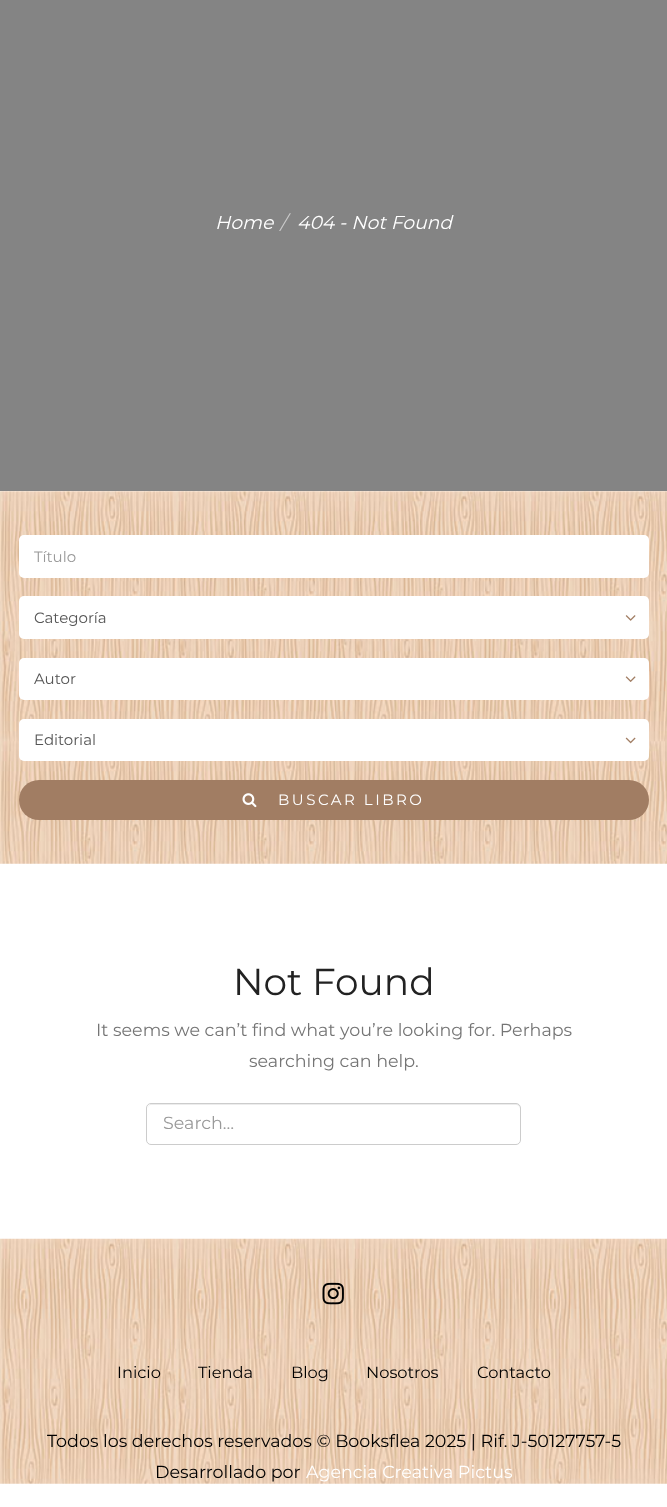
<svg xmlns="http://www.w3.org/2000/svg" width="667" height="1507">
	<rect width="100%" height="100%" fill="#FFFFFF" />
	<rect x="0" y="0" width="667" height="491" fill="#848484" />
	<text x="215" y="229" font-family="Montserrat" font-size="18.75" font-style="italic" fill="#FFFFFF">Home</text>
	<text x="280" y="229" font-family="Montserrat" font-size="18.75" font-style="italic" fill="#CCCCCC">/</text>
	<text x="297" y="229" font-family="Montserrat" font-size="18.75" font-style="italic" fill="#FFFFFF">404 - Not Found</text>
	<image x="0" y="491" width="667" height="373" href="assets/img1.png" />
	<rect x="19" y="535" width="630" height="43" rx="5" fill="#FFFFFF" />
	<text x="34" y="562" font-family="Montserrat" font-size="15" fill="#999999">Título</text>
	<rect x="19" y="596" width="630" height="43" rx="5" fill="#FFFFFF" />
	<text x="34" y="623" font-family="Montserrat" font-size="15" fill="#555555">Categoría</text>
	<image x="625" y="615" width="11" height="6" href="assets/img2.png" />
	<rect x="19" y="658" width="630" height="42" rx="5" fill="#FFFFFF" />
	<text x="34" y="684" font-family="Montserrat" font-size="15" fill="#555555">Autor</text>
	<image x="625" y="676" width="11" height="6" href="assets/img3.png" />
	<rect x="19" y="719" width="630" height="42" rx="5" fill="#FFFFFF" />
	<text x="34" y="745" font-family="Montserrat" font-size="15" fill="#555555">Editorial</text>
	<image x="625" y="737" width="11" height="7" href="assets/img4.png" />
	<rect x="19" y="780" width="630" height="40" rx="20" fill="#A17D63" />
	<image x="242" y="793" width="15" height="15" href="assets/img5.png" />
	<text x="278" y="805" font-family="Montserrat" font-size="15" letter-spacing="2.5" fill="#FFFFFF">BUSCAR LIBRO</text>
	<text x="233" y="995" font-family="Montserrat" font-size="37.5" fill="#222222">Not Found</text>
	<g font-family="Montserrat" font-size="17.5" fill="#757575">
		<text x="96" y="1036">It seems we can’t find what you’re looking for. Perhaps</text>
		<text x="249" y="1067">searching can help.</text>
	</g>
	<path d="M151 1105H516C518 1105 520 1107 520 1109C520 1106 519 1104 516 1104H152C149 1104 148 1106 148 1109C148 1107 149 1105 151 1105Z" fill="#ECECEC" />
	<rect x="146.5" y="1103.5" width="374" height="41" rx="4.5" fill="none" stroke="#CCCCCC" />
	<text x="163" y="1129" font-family="Montserrat" font-size="17.5" fill="#999999">Search…</text>
	<image x="0" y="1238" width="667" height="246" href="assets/img6.png" />
	<image x="322" y="1282" width="22" height="23" href="assets/img7.png" />
	<g font-family="Montserrat" font-size="16.25" fill="#000000">
		<text x="117" y="1378">Inicio</text>
		<text x="198" y="1378">Tienda</text>
		<text x="291" y="1378">Blog</text>
		<text x="366" y="1378">Nosotros</text>
		<text x="477" y="1378">Contacto</text>
	</g>
	<g font-family="Montserrat" font-size="17.5" fill="#000000">
		<text x="47" y="1447">Todos los derechos reservados © Booksflea 2025 | Rif. J-50127757-5</text>
		<text x="155" y="1478">Desarrollado por</text>
	</g>
	<text x="306" y="1478" font-family="Montserrat" font-size="17.5" fill="#FFFFFF">Agencia Creativa Pictus</text>
</svg>
